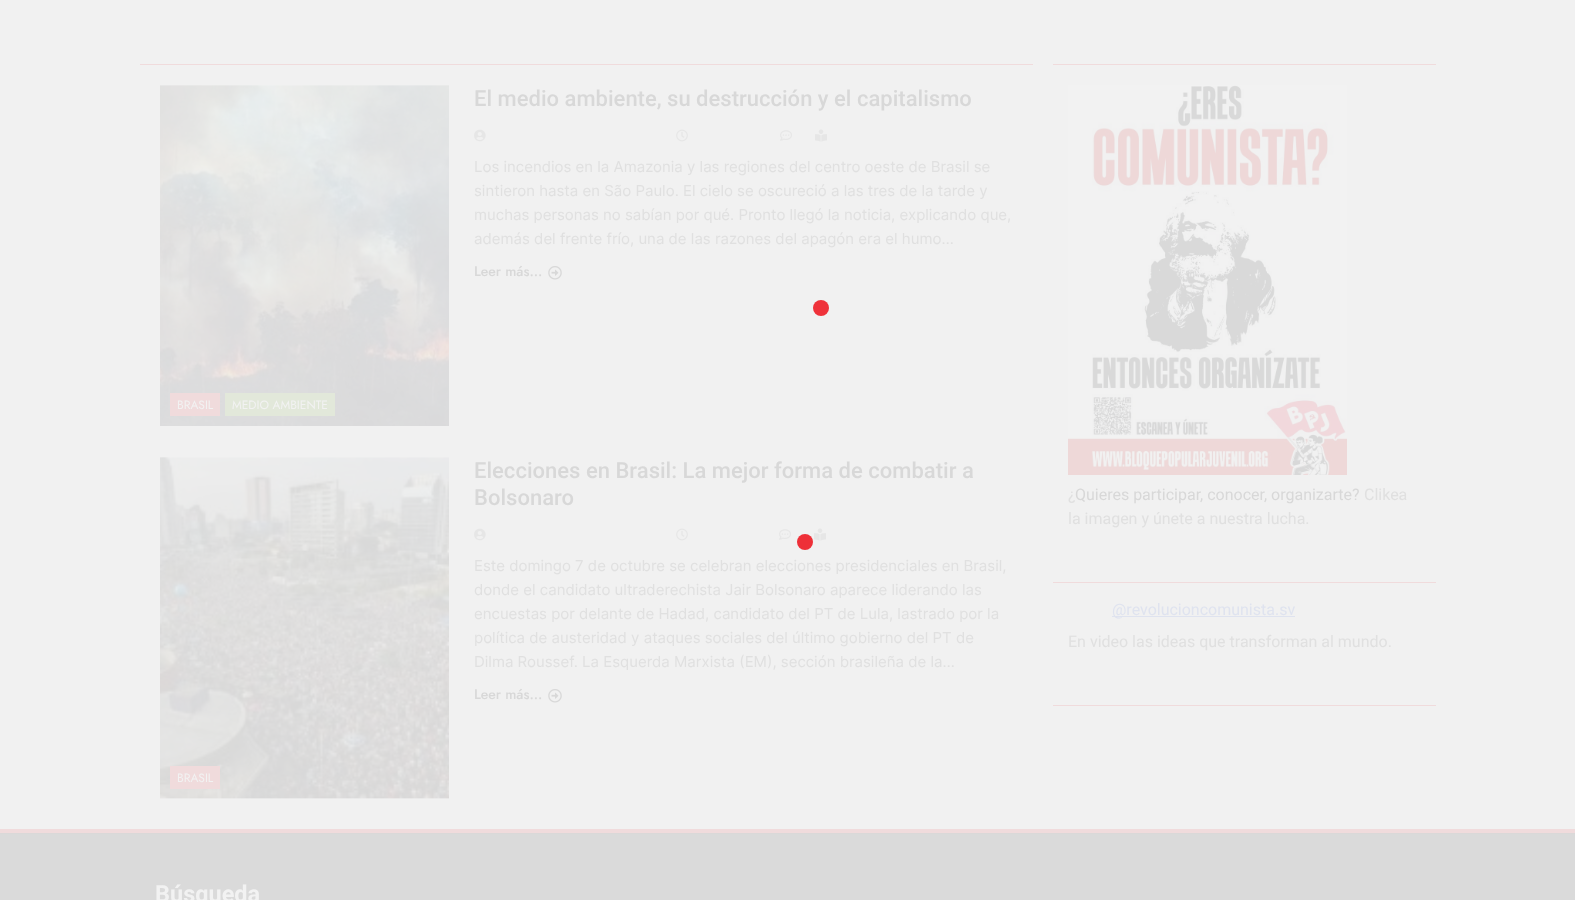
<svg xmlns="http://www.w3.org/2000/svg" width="1575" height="900">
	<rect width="100%" height="100%" fill="#F1F1F1" />
	<rect x="0" y="834" width="1575" height="66" fill="#DADADA" />
	<rect x="140" y="64" width="893" height="1" fill="#F0DBDC" />
	<text x="474" y="106" font-family="Roboto" font-size="22" font-weight="500" fill="#D8D8D8">El medio ambiente, su destrucción y el capitalismo</text>
	<image x="474" y="129" width="12" height="13" href="assets/img1.png" />
	<image x="676" y="129" width="12" height="13" href="assets/img2.png" />
	<image x="780" y="130" width="12" height="11" href="assets/img3.png" />
	<image x="815" y="129" width="12" height="13" href="assets/img4.png" />
	<g font-family="Inter" font-size="15" fill="#E0E0E0">
		<text x="474" y="172">Los incendios en la Amazonia y las regiones del centro oeste de Brasil se</text>
		<text x="474" y="196">sintieron hasta en São Paulo. El cielo se oscureció a las tres de la tarde y</text>
		<text x="474" y="220">muchas personas no sabían por qué. Pronto llegó la noticia, explicando que,</text>
		<text x="474" y="244">además del frente frío, una de las razones del apagón era el humo…</text>
	</g>
	<text x="474" y="276" font-family="Jost" font-size="14" font-weight="500" fill="#D8D8D8">Leer más...</text>
	<image x="548" y="266" width="14" height="14" href="assets/img5.png" />
	<image x="160" y="85" width="289" height="341" href="assets/img6.png" />
	<rect x="170" y="393" width="50" height="23" fill="#F0DBDC" />
	<text x="177" y="409" font-family="Jost" font-size="12" fill="#F2F2F2">BRASIL</text>
	<rect x="225" y="393" width="110" height="23" fill="#E2E8DA" />
	<text x="232" y="409" font-family="Jost" font-size="12" fill="#F2F2F2">MEDIO AMBIENTE</text>
	<g font-family="Roboto" font-size="22" font-weight="500" fill="#D8D8D8">
		<text x="474" y="478">Elecciones en Brasil: La mejor forma de combatir a</text>
		<text x="474" y="505">Bolsonaro</text>
	</g>
	<image x="474" y="528" width="12" height="13" href="assets/img1.png" />
	<image x="676" y="528" width="12" height="13" href="assets/img2.png" />
	<image x="779" y="529" width="12" height="11" href="assets/img3.png" />
	<image x="814" y="528" width="12" height="13" href="assets/img4.png" />
	<g font-family="Inter" font-size="15" fill="#E0E0E0">
		<text x="474" y="571">Este domingo 7 de octubre se celebran elecciones presidenciales en Brasil,</text>
		<text x="474" y="595">donde el candidato ultraderechista Jair Bolsonaro aparece liderando las</text>
		<text x="474" y="619">encuestas por delante de Hadad, candidato del PT de Lula, lastrado por la</text>
		<text x="474" y="643">política de austeridad y ataques sociales del último gobierno del PT de</text>
		<text x="474" y="667">Dilma Roussef. La Esquerda Marxista (EM), sección brasileña de la…</text>
	</g>
	<text x="474" y="699" font-family="Jost" font-size="14" font-weight="500" fill="#D8D8D8">Leer más...</text>
	<image x="548" y="689" width="14" height="14" href="assets/img5.png" />
	<image x="160" y="457" width="289" height="342" href="assets/img7.png" />
	<rect x="170" y="766" width="50" height="23" fill="#F0DBDC" />
	<text x="177" y="782" font-family="Jost" font-size="12" fill="#F2F2F2">BRASIL</text>
	<rect x="1053" y="64" width="383" height="1" fill="#F0DBDC" />
	<image x="1068" y="85" width="279" height="390" href="assets/img8.png" />
	<text x="1068" y="500" font-family="Roboto" font-size="16" fill="#E0E0E0">¿</text>
	<text x="1075" y="500" font-family="Roboto" font-size="16" fill="#D8D8D8">Quieres participar, conocer, organizarte?</text>
	<g font-family="Roboto" font-size="16" fill="#E0E0E0">
		<text x="1364" y="500">Clikea</text>
		<text x="1068" y="524">la imagen y únete a nuestra lucha.</text>
	</g>
	<rect x="1053" y="582" width="383" height="1" fill="#F0DBDC" />
	<rect x="1112" y="616" width="183" height="1" fill="#DFE3EF" />
	<text x="1112" y="615" font-family="Roboto" font-size="16" fill="#DFE3EF">@revolucioncomunista.sv</text>
	<text x="1068" y="647" font-family="Roboto" font-size="16" fill="#E0E0E0">En video las ideas que transforman al mundo.</text>
	<rect x="1053" y="705" width="383" height="1" fill="#F0DBDC" />
	<circle cx="821" cy="308" r="8" fill="#EF323A" />
	<circle cx="805" cy="542" r="8" fill="#ED1B24" fill-opacity="0.9" />
	<rect x="0" y="829" width="1575" height="4" fill="#F0DBDC" />
	<rect x="0" y="833" width="1575" height="1" fill="#DAD8D8" />
	<text x="155" y="902" font-family="Roboto" font-size="23.5" font-weight="700" fill="#F2F2F2">Búsqueda</text>
</svg>
